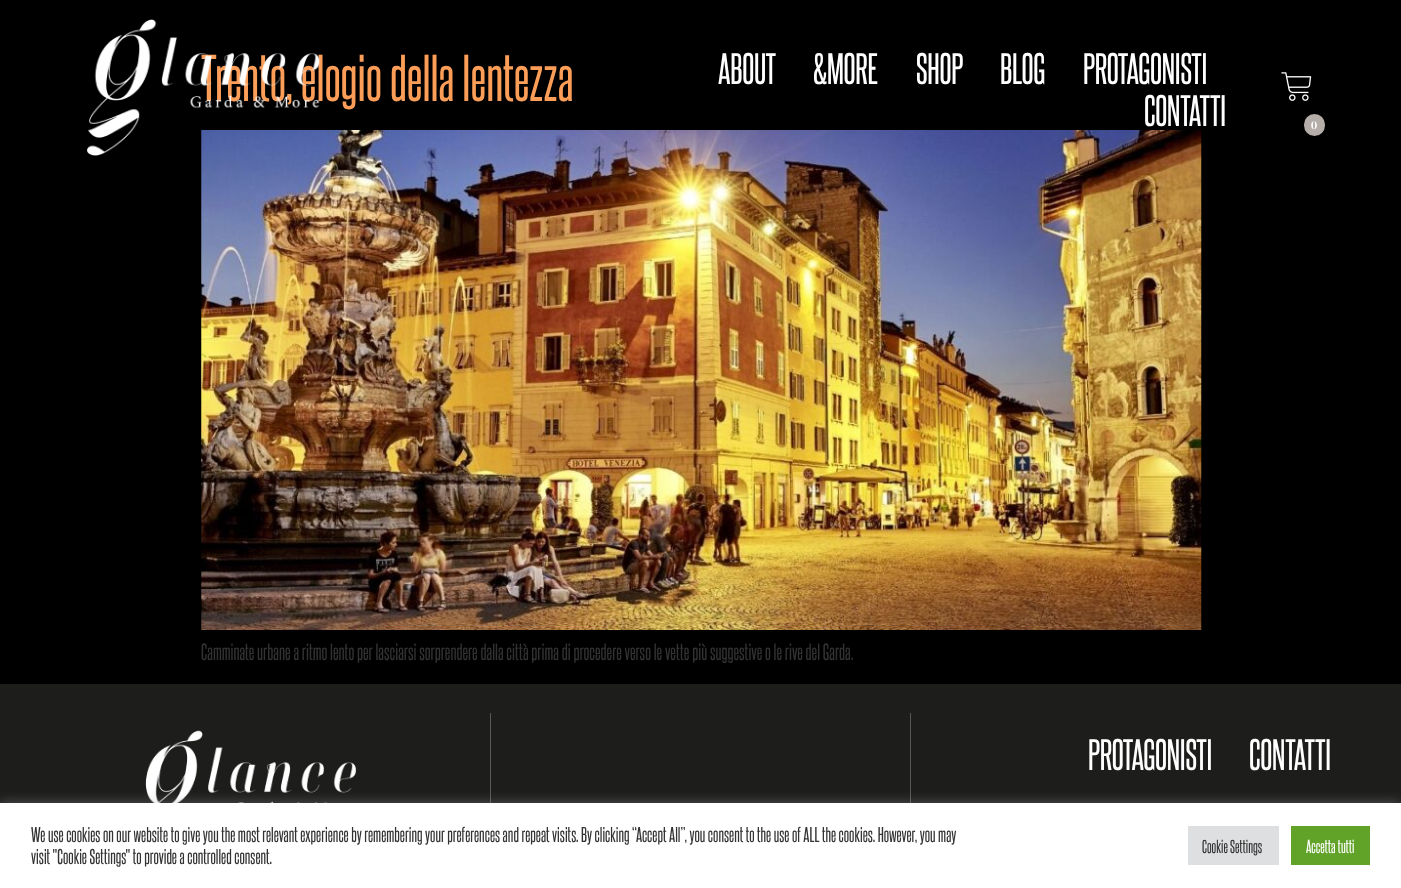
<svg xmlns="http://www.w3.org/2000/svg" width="1401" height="888">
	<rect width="100%" height="100%" fill="#000000" />
	<text x="201" y="101" font-family="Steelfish" font-size="56.25" fill="#FC9E58">Trento, elogio della lentezza</text>
	<image x="201" y="130" width="1001" height="500" href="assets/img1.png" />
	<text x="201" y="660" font-family="Steelfish" font-size="20" fill="#333333">Camminate urbane a ritmo lento per lasciarsi sorprendere dalla città prima di procedere verso le vette più suggestive o le rive del Garda.</text>
	<image x="87" y="19" width="233" height="137" href="assets/img2.png" />
	<g font-family="Steelfish" font-size="37.5" letter-spacing="-0.25" fill="#FFFFFF">
		<text x="718" y="84">ABOUT</text>
		<text x="813" y="84">&amp;MORE</text>
		<text x="916" y="84">SHOP</text>
		<text x="1000" y="84">BLOG</text>
		<text x="1083" y="84">PROTAGONISTI</text>
		<text x="1144" y="126">CONTATTI</text>
	</g>
	<image x="1281" y="72" width="31" height="29" href="assets/img3.png" />
	<rect x="1304" y="114" width="21" height="22" rx="10.5" fill="#B4ADA8" />
	<text x="1311" y="129" font-family="DM Serif Display" font-size="12" fill="#FFFFFF">0</text>
	<rect x="0" y="684" width="1401" height="119" fill="#1D1D1B" />
	<image x="145" y="730" width="212" height="73" href="assets/img4.png" />
	<rect x="910" y="713" width="1" height="90" fill="#5A5755" />
	<rect x="490" y="713" width="1" height="90" fill="#5A5755" />
	<g font-family="Steelfish" font-size="37.5" letter-spacing="-0.25" fill="#FFFFFF">
		<text x="1088" y="770">PROTAGONISTI</text>
		<text x="1249" y="770">CONTATTI</text>
	</g>
	<rect x="0" y="801" width="1401" height="87" fill="#ACABAB" fill-opacity="0.3" filter="blur(6px)" />
	<rect x="0" y="803" width="1401" height="85" fill="#FFFFFF" />
	<g font-family="Steelfish" font-size="18.33" fill="#333333">
		<text x="31" y="842">We use cookies on our website to give you the most relevant experience by remembering your preferences and repeat visits. By clicking “Accept All”, you consent to the use of ALL the cookies. However, you may</text>
		<text x="31" y="864">visit "Cookie Settings" to provide a controlled consent.</text>
	</g>
	<rect x="1188" y="826" width="91" height="39" fill="#DEDFE0" />
	<text x="1202" y="853" font-family="Steelfish" font-size="16" fill="#333333">Cookie Settings</text>
	<rect x="1291" y="826" width="79" height="39" fill="#61A229" />
	<text x="1306" y="853" font-family="Steelfish" font-size="16" fill="#FFFFFF">Accetta tutti</text>
</svg>
